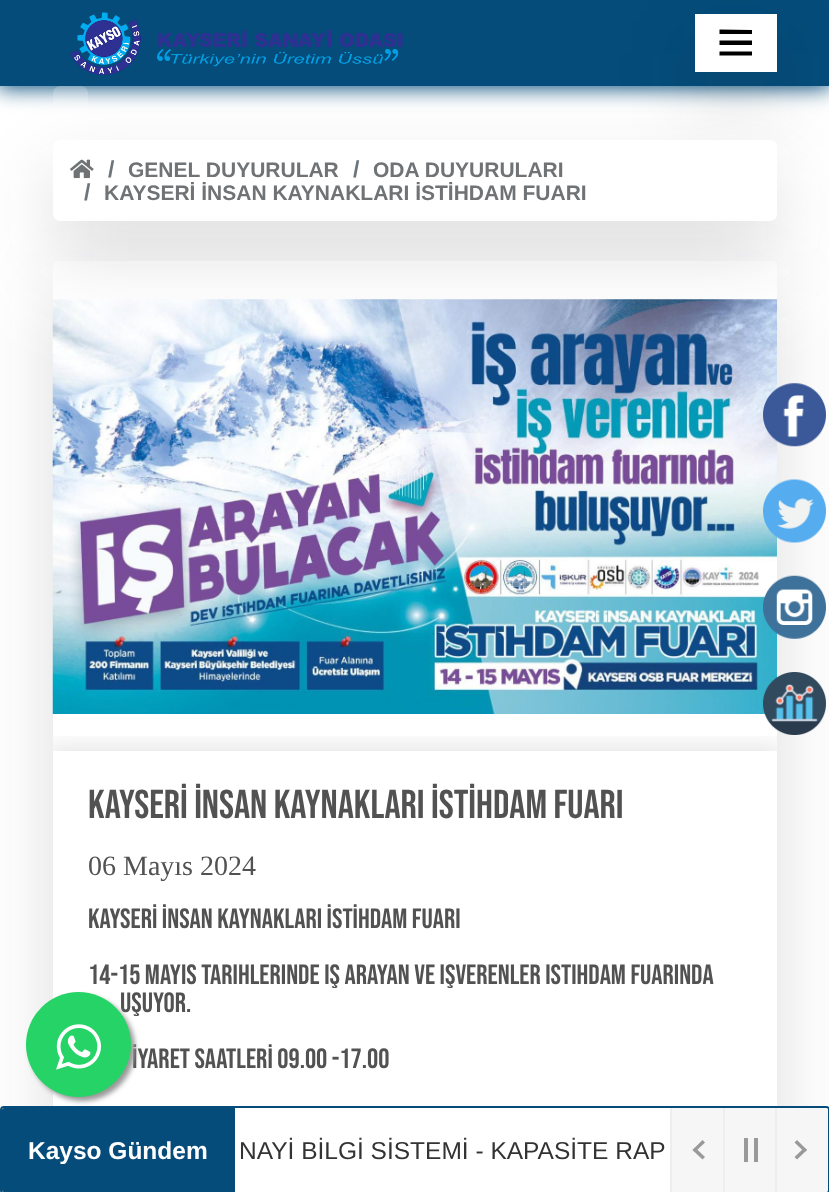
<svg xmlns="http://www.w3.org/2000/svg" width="829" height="1192">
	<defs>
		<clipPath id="clip1"><path d="M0 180H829V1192H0ZM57 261H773C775 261 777 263 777 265V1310C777 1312 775 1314 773 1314H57C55 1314 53 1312 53 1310V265C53 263 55 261 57 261Z" clip-rule="evenodd" /></clipPath>
		<clipPath id="clip2"><rect x="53" y="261" width="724" height="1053" rx="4" /></clipPath>
		<clipPath id="clip3"><rect x="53" y="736" width="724" height="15" /></clipPath>
	</defs>
	<rect width="100%" height="100%" fill="#FFFFFF" />
	<rect x="-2" y="-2" width="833" height="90" fill="#004877" filter="blur(10.5px)" />
	<rect x="0" y="0" width="829" height="86" fill="#054C7A" />
	<image x="70" y="12" width="333" height="64" href="assets/img1.png" />
	<rect x="695" y="46" width="82" height="57" fill="#1C1E23" fill-opacity="0.15" filter="blur(37px)" />
	<rect x="695" y="14" width="82" height="58" fill="#FFFFFF" />
	<path d="M752 30V34H719.5V29.5ZM719.5 45H752V40.5H719.5ZM719.5 55.5H752V51.5H719.5Z" fill="#000000" />
	<rect x="53" y="86" width="35" height="35" rx="7" fill="#FFFFFF" fill-opacity="0.2" />
	<rect x="53" y="172" width="724" height="80" rx="7" fill="#1C1E23" fill-opacity="0.15" filter="blur(37px)" />
	<rect x="53" y="140" width="724" height="81" rx="7" fill="#FFFFFF" />
	<image x="70" y="159" width="24" height="20" href="assets/img2.png" />
	<text x="108" y="177" font-family="Liberation Sans" font-size="23" font-weight="700" fill="#6C757D">/</text>
	<text x="128" y="177" font-family="Liberation Sans" font-size="21" font-weight="700" fill="#707375">GENEL DUYURULAR</text>
	<text x="353" y="177" font-family="Liberation Sans" font-size="23" font-weight="700" fill="#6C757D">/</text>
	<text x="373" y="177" font-family="Liberation Sans" font-size="21" font-weight="700" fill="#707375">ODA DUYURULARI</text>
	<text x="84" y="200" font-family="Liberation Sans" font-size="23" font-weight="700" fill="#6C757D">/</text>
	<text x="104" y="200" font-family="Liberation Sans" font-size="21" font-weight="700" fill="#707375">KAYSERİ İNSAN KAYNAKLARI İSTİHDAM FUARI</text>
	<g clip-path="url(#clip1)">
		<rect x="53" y="292" width="724" height="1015" rx="4" fill="#1C1E23" fill-opacity="0.15" filter="blur(37px)" />
	</g>
	<g clip-path="url(#clip2)">
		<g clip-path="url(#clip3)">
			<rect x="47" y="746" width="735" height="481" fill="#000000" fill-opacity="0.1" filter="blur(11.5px)" />
		</g>
	</g>
	<image x="52" y="299" width="725" height="415" href="assets/img3.png" />
	<text x="88" y="818" font-family="Bebas Neue" font-size="40.25" fill="#525252">KAYSERİ İNSAN KAYNAKLARI İSTİHDAM FUARI</text>
	<text x="88" y="875" font-family="Liberation Serif" font-size="28" fill="#525252">06 Mayıs 2024</text>
	<g font-family="Bebas Neue" font-size="28" fill="#525252">
		<text x="88" y="928">KAYSERİ İNSAN KAYNAKLARI İSTİHDAM FUARI</text>
		<text x="88" y="984">14-15 Mayıs tarihlerinde iş arayan ve işverenler istihdam fuarında</text>
		<text x="120" y="1012">uşuyor.</text>
		<text x="132" y="1068">İYARET SAATLERİ 09.00 -17.00</text>
	</g>
	<rect x="30" y="996" width="105" height="105" rx="52.5" fill="#999999" filter="blur(2.5px)" />
	<rect x="1" y="1107" width="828" height="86" rx="3" fill="#FFFFFF" stroke="#054C7A" stroke-width="2" />
	<path d="M4 1108H235V1192H4C3 1192 2 1191 2 1190V1110C2 1109 3 1108 4 1108Z" fill="#054C7A" />
	<text x="28" y="1159" font-family="Liberation Sans" font-size="24.5" font-weight="700" fill="#FFFFFF">Kayso Gündem</text>
	<text x="239" y="1159" font-family="Liberation Sans" font-size="24.5" fill="#333333">NAYİ BİLGİ SİSTEMİ - KAPASİTE RAP</text>
	<rect x="672" y="1108" width="51" height="84" fill="#F6F6F6" />
	<rect x="670" y="1108" width="2" height="84" fill="#EEEEEE" />
	<path d="M705 1157L702.5 1159.5L692.5 1150L695 1147.5Z" fill="#999999" />
	<path d="M705 1142.5L695 1152L692.5 1150L702.5 1140Z" fill="#999999" />
	<rect x="725" y="1108" width="50" height="84" fill="#F6F6F6" />
	<rect x="723" y="1108" width="2" height="84" fill="#EEEEEE" />
	<rect x="744" y="1138" width="4" height="24" fill="#999999" />
	<rect x="754" y="1138" width="4" height="24" fill="#999999" />
	<path d="M775 1108H826C827 1108 828 1109 828 1110V1190C828 1191 827 1192 826 1192H775Z" fill="#F6F6F6" />
	<rect x="775" y="1108" width="2" height="84" fill="#EEEEEE" />
	<path d="M794.5 1142.5L797 1140L807 1150L804.5 1152Z" fill="#999999" />
	<path d="M794.5 1157L804.5 1147.5L807 1150L797 1159.5Z" fill="#999999" />
	<image x="763" y="383" width="63" height="64" href="assets/img4.png" />
	<image x="763" y="479" width="63" height="64" href="assets/img5.png" />
	<image x="763" y="575" width="63" height="64" href="assets/img6.png" />
	<image x="763" y="672" width="63" height="63" href="assets/img7.png" />
	<circle cx="78.5" cy="1044.5" r="52.5" fill="#25D366" />
	<image x="56" y="1024" width="45" height="46" href="assets/img8.png" />
</svg>
